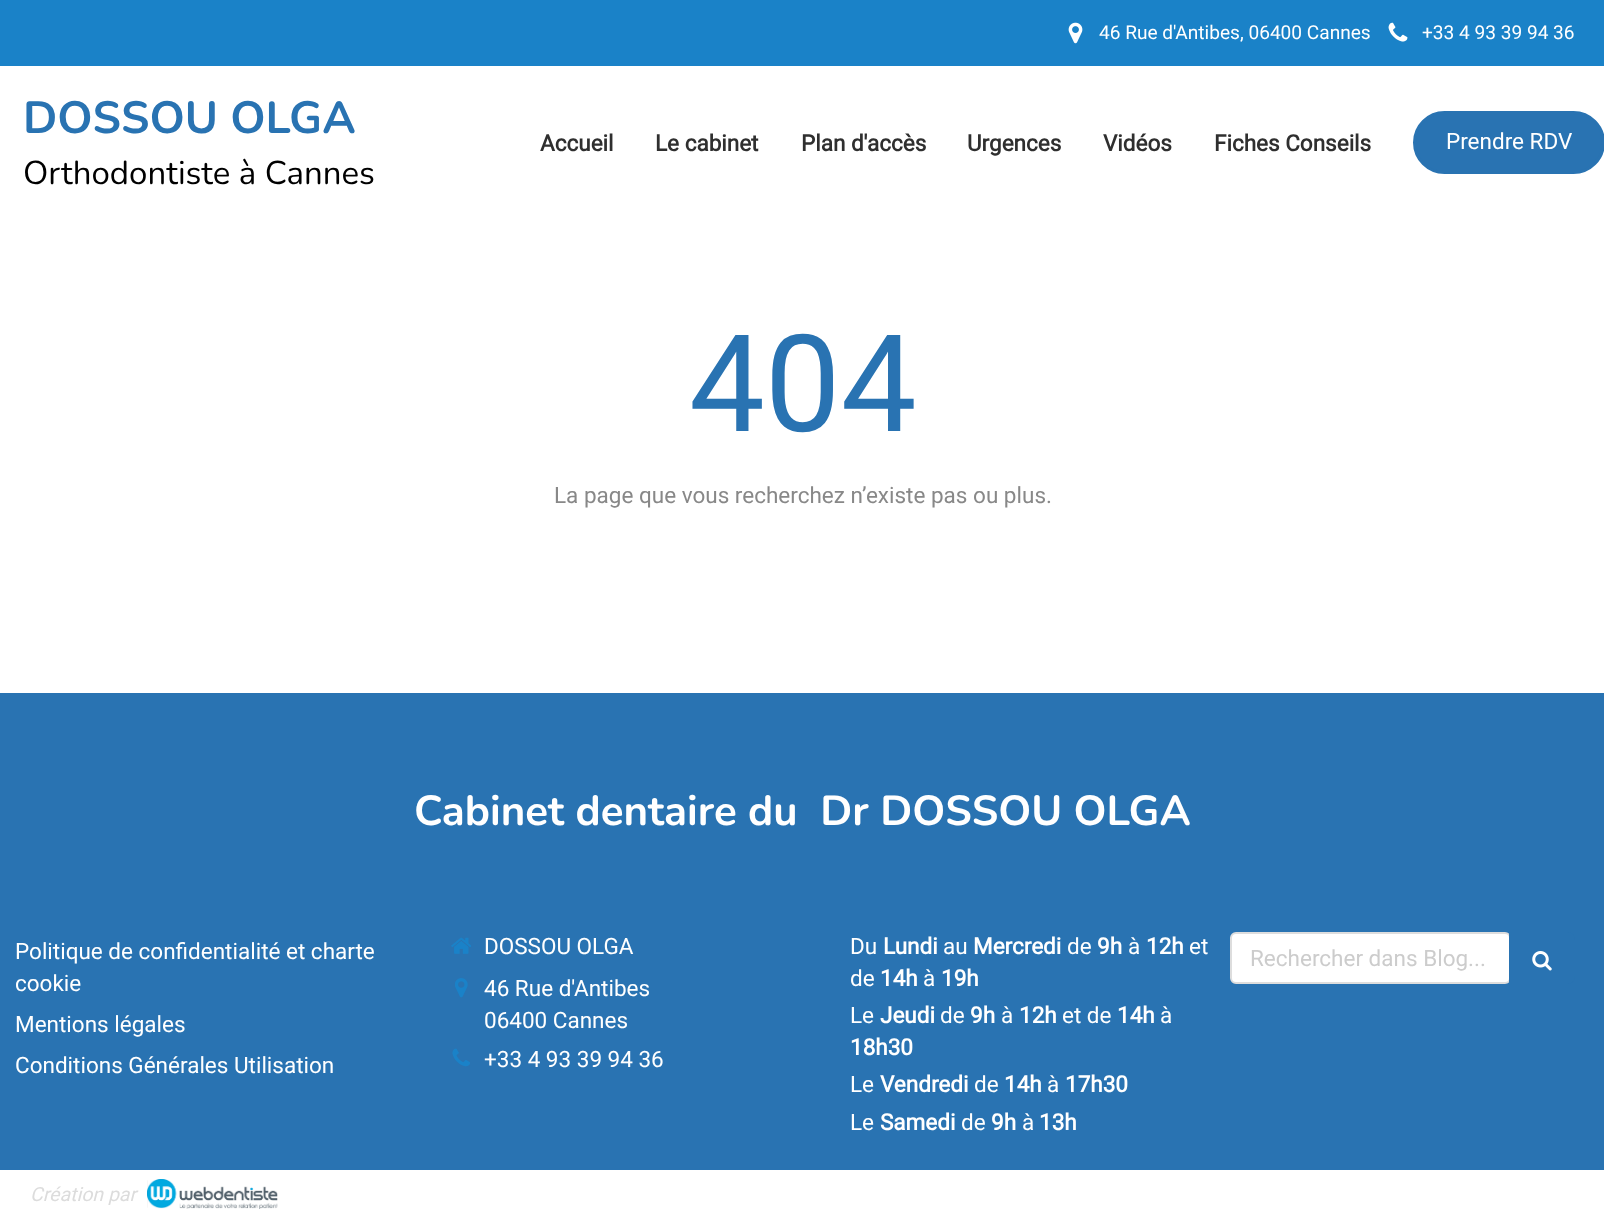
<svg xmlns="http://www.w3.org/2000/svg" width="1604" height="1217">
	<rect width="100%" height="100%" fill="#FFFFFF" />
	<rect x="0" y="0" width="1604" height="66" fill="#1A82C8" />
	<image x="1068" y="22" width="15" height="22" href="assets/img1.png" />
	<text x="1099" y="39" font-family="Roboto" font-size="19.1" fill="#FFFFFF">46 Rue d'Antibes, 06400 Cannes</text>
	<image x="1388" y="22" width="20" height="20" href="assets/img2.png" />
	<text x="1422" y="39" font-family="Roboto" font-size="19.1" fill="#FFFFFF">+33 4 93 39 94 36</text>
	<text x="23" y="133" font-family="Nunito" font-size="45" font-weight="700" fill="#2973B2">DOSSOU OLGA</text>
	<text x="23" y="184" font-family="Nunito" font-size="33" fill="#000000">Orthodontiste à Cannes</text>
	<g font-family="Roboto" font-size="22.5" font-weight="700" fill="#2F2F2F">
		<text x="540" y="151">Accueil</text>
		<text x="655" y="151">Le cabinet</text>
		<text x="801" y="151">Plan d'accès</text>
		<text x="967" y="151">Urgences</text>
		<text x="1103" y="151">Vidéos</text>
		<text x="1214" y="151">Fiches Conseils</text>
	</g>
	<rect x="1414.5" y="112.5" width="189" height="60" rx="30" fill="#2973B2" stroke="#2973B2" stroke-width="3" />
	<text x="1446" y="149" font-family="Roboto" font-size="22.5" fill="#FFFFFF">Prendre RDV</text>
	<text x="689" y="431" font-family="Roboto" font-size="135" fill="#2973B2">404</text>
	<text x="554" y="503" font-family="Roboto" font-size="22.5" fill="#888888">La page que vous recherchez n’existe pas ou plus.</text>
	<rect x="0" y="693" width="1604" height="477" fill="#2973B2" />
	<text x="414" y="825" font-family="Nunito" font-size="42" font-weight="700" fill="#FFFFFF" xml:space="preserve">Cabinet dentaire du  Dr DOSSOU OLGA</text>
	<g font-family="Roboto" font-size="22.5" fill="#FFFFFF">
		<text x="15" y="959">Politique de confidentialité et charte</text>
		<text x="15" y="991">cookie</text>
		<text x="15" y="1032">Mentions légales</text>
		<text x="15" y="1073">Conditions Générales Utilisation</text>
	</g>
	<image x="451" y="937" width="20" height="17" href="assets/img3.png" />
	<text x="484" y="954" font-family="Roboto" font-size="22.5" fill="#FFFFFF">DOSSOU OLGA</text>
	<image x="455" y="978" width="13" height="20" href="assets/img4.png" />
	<g font-family="Roboto" font-size="22.5" fill="#FFFFFF">
		<text x="484" y="996">46 Rue d'Antibes</text>
		<text x="484" y="1028">06400 Cannes</text>
	</g>
	<image x="452" y="1048" width="18" height="19" href="assets/img5.png" />
	<g font-family="Roboto" font-size="22.5" fill="#FFFFFF">
		<text x="484" y="1067">+33 4 93 39 94 36</text>
		<text x="850" y="954">Du</text>
	</g>
	<text x="883" y="954" font-family="Roboto" font-size="22.5" font-weight="700" fill="#FFFFFF">Lundi</text>
	<text x="943" y="954" font-family="Roboto" font-size="22.5" fill="#FFFFFF">au</text>
	<text x="973" y="954" font-family="Roboto" font-size="22.5" font-weight="700" fill="#FFFFFF">Mercredi</text>
	<text x="1067" y="954" font-family="Roboto" font-size="22.5" fill="#FFFFFF">de</text>
	<text x="1097" y="954" font-family="Roboto" font-size="22.5" font-weight="700" fill="#FFFFFF">9h</text>
	<text x="1128" y="954" font-family="Roboto" font-size="22.5" fill="#FFFFFF">à</text>
	<text x="1146" y="954" font-family="Roboto" font-size="22.5" font-weight="700" fill="#FFFFFF">12h</text>
	<g font-family="Roboto" font-size="22.5" fill="#FFFFFF">
		<text x="1189" y="954">et</text>
		<text x="850" y="986">de</text>
	</g>
	<text x="880" y="986" font-family="Roboto" font-size="22.5" font-weight="700" fill="#FFFFFF">14h</text>
	<text x="923" y="986" font-family="Roboto" font-size="22.5" fill="#FFFFFF">à</text>
	<text x="941" y="986" font-family="Roboto" font-size="22.5" font-weight="700" fill="#FFFFFF">19h</text>
	<text x="850" y="1023" font-family="Roboto" font-size="22.5" fill="#FFFFFF">Le</text>
	<text x="880" y="1023" font-family="Roboto" font-size="22.5" font-weight="700" fill="#FFFFFF">Jeudi</text>
	<text x="940" y="1023" font-family="Roboto" font-size="22.5" fill="#FFFFFF">de</text>
	<text x="970" y="1023" font-family="Roboto" font-size="22.5" font-weight="700" fill="#FFFFFF">9h</text>
	<text x="1001" y="1023" font-family="Roboto" font-size="22.5" fill="#FFFFFF">à</text>
	<text x="1019" y="1023" font-family="Roboto" font-size="22.5" font-weight="700" fill="#FFFFFF">12h</text>
	<text x="1062" y="1023" font-family="Roboto" font-size="22.5" fill="#FFFFFF">et de</text>
	<text x="1117" y="1023" font-family="Roboto" font-size="22.5" font-weight="700" fill="#FFFFFF">14h</text>
	<text x="1160" y="1023" font-family="Roboto" font-size="22.5" fill="#FFFFFF">à</text>
	<text x="850" y="1055" font-family="Roboto" font-size="22.5" font-weight="700" fill="#FFFFFF">18h30</text>
	<text x="850" y="1092" font-family="Roboto" font-size="22.5" fill="#FFFFFF">Le</text>
	<text x="880" y="1092" font-family="Roboto" font-size="22.5" font-weight="700" fill="#FFFFFF">Vendredi</text>
	<text x="974" y="1092" font-family="Roboto" font-size="22.5" fill="#FFFFFF">de</text>
	<text x="1004" y="1092" font-family="Roboto" font-size="22.5" font-weight="700" fill="#FFFFFF">14h</text>
	<text x="1047" y="1092" font-family="Roboto" font-size="22.5" fill="#FFFFFF">à</text>
	<text x="1065" y="1092" font-family="Roboto" font-size="22.5" font-weight="700" fill="#FFFFFF">17h30</text>
	<text x="850" y="1130" font-family="Roboto" font-size="22.5" fill="#FFFFFF">Le</text>
	<text x="880" y="1130" font-family="Roboto" font-size="22.5" font-weight="700" fill="#FFFFFF">Samedi</text>
	<text x="961" y="1130" font-family="Roboto" font-size="22.5" fill="#FFFFFF">de</text>
	<text x="991" y="1130" font-family="Roboto" font-size="22.5" font-weight="700" fill="#FFFFFF">9h</text>
	<text x="1022" y="1130" font-family="Roboto" font-size="22.5" fill="#FFFFFF">à</text>
	<text x="1039" y="1130" font-family="Roboto" font-size="22.5" font-weight="700" fill="#FFFFFF">13h</text>
	<rect x="1231" y="933" width="279" height="50" rx="5" fill="#FFFFFF" stroke="#DDDDDD" stroke-width="2" />
	<text x="1250" y="966" font-family="Roboto" font-size="22.5" fill="#CCCCCC">Rechercher dans Blog...</text>
	<path d="M1509 932H1567C1571.5 932 1575 935.5 1575 940V976C1575 980.5 1571.5 984 1567 984H1509Z" fill="#2973B2" />
	<image x="1532" y="951" width="20" height="20" href="assets/img6.png" />
	<text x="30" y="1201" font-family="Roboto" font-size="19.5" font-style="italic" fill="#DCDCDC">Création par</text>
	<image x="147" y="1179" width="131" height="30" href="assets/img7.png" />
</svg>
